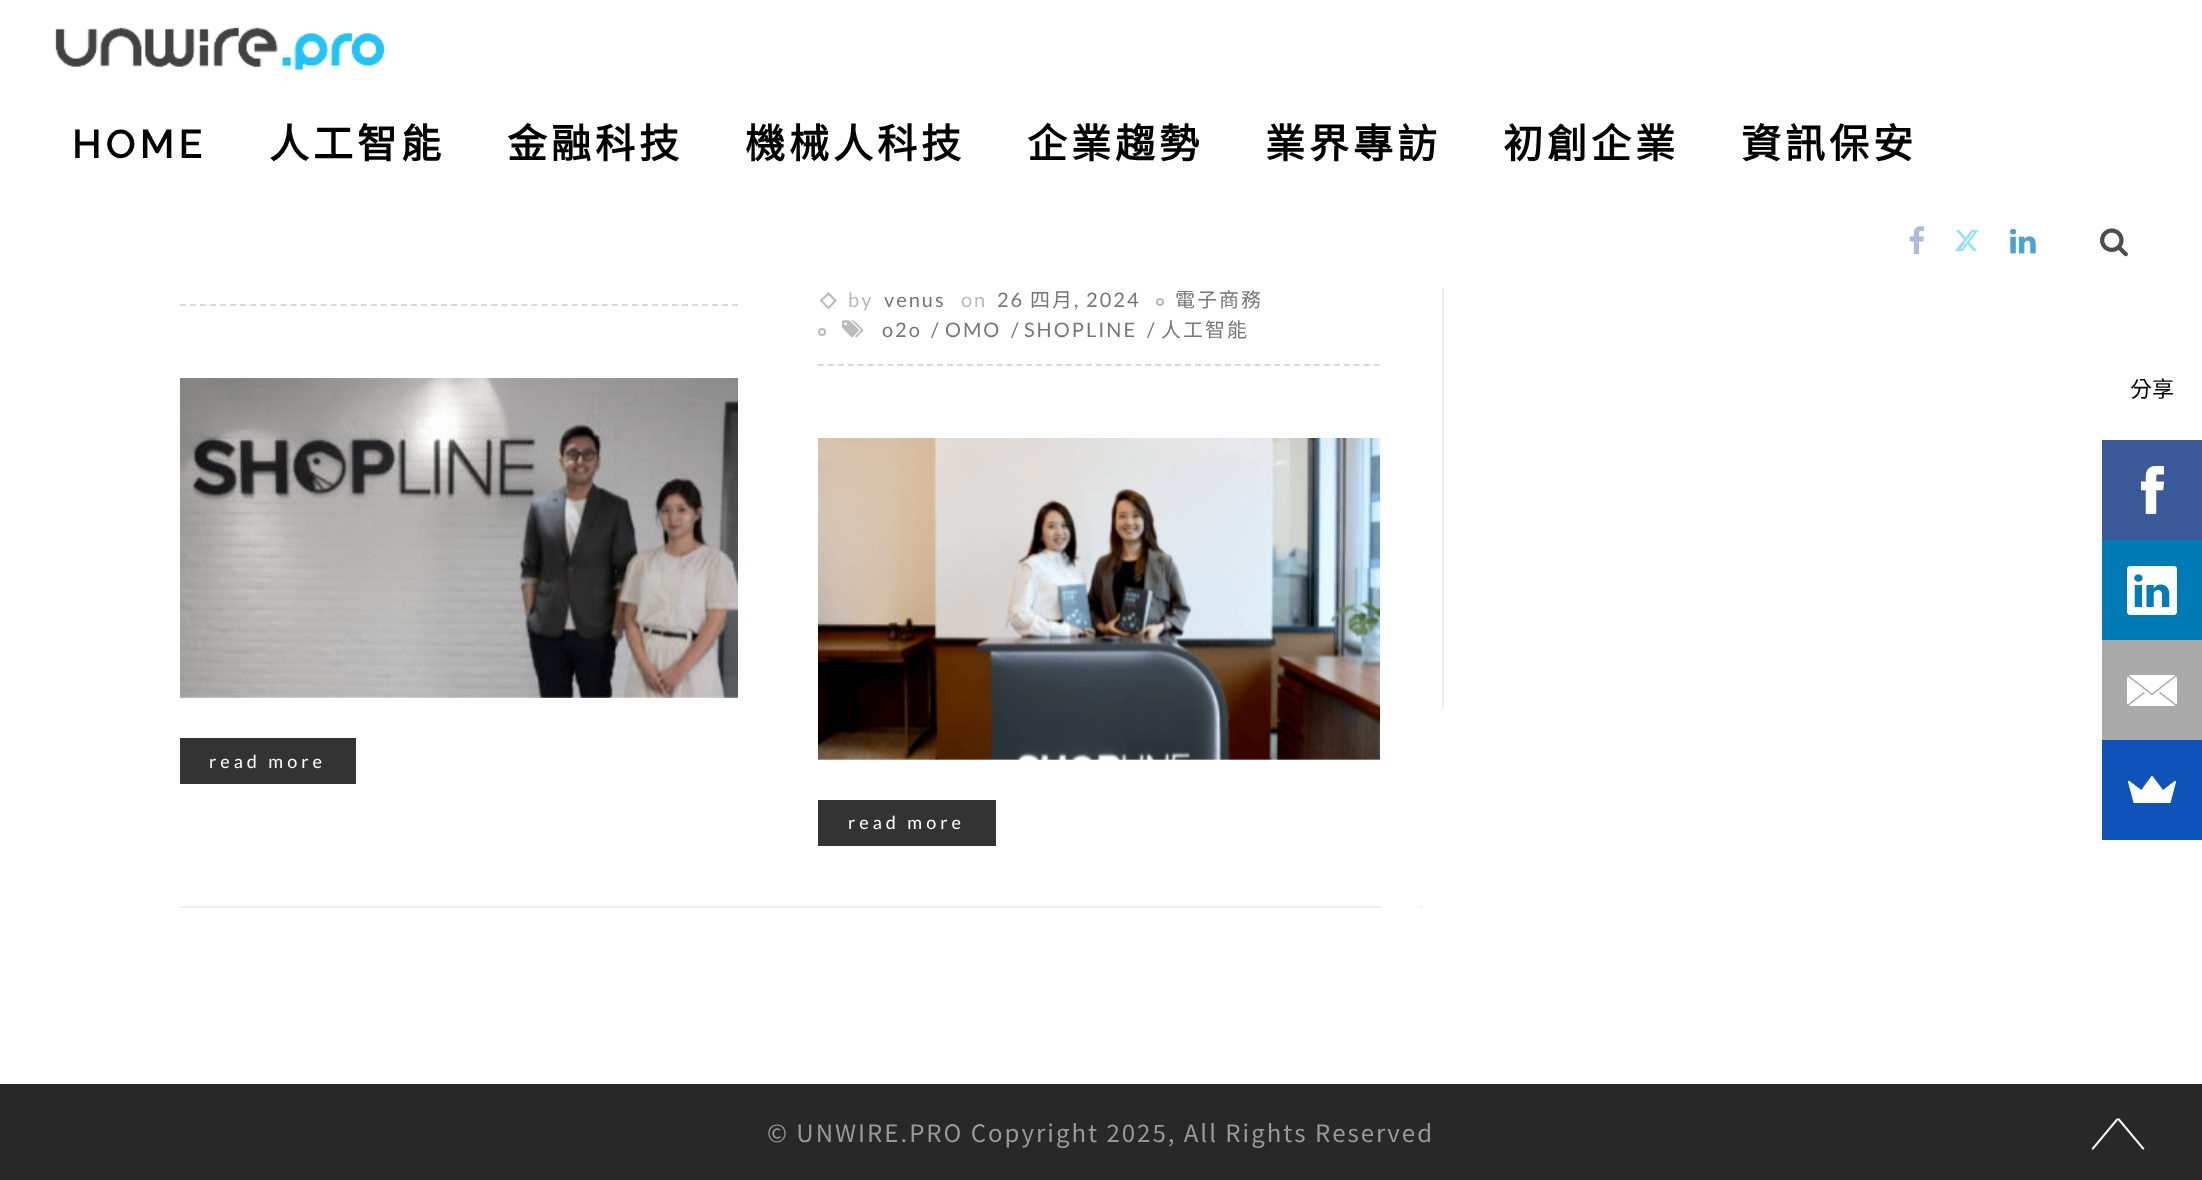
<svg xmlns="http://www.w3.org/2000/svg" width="2202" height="1180">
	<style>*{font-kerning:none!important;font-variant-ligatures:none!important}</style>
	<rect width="100%" height="100%" fill="#FFFFFF" />
	<image x="55" y="27" width="330" height="44" href="assets/img1.png" />
	<text x="72" y="158" font-family="Raleway" font-size="40" font-weight="600" letter-spacing="4" fill="#000000">HOME</text>
	<g font-family="Noto Sans CJK TC" font-size="40" font-weight="700" letter-spacing="4" fill="#000000">
		<text x="269" y="158">人工智能</text>
		<text x="507" y="158">金融科技</text>
		<text x="745" y="158">機械人科技</text>
		<text x="1027" y="158">企業趨勢</text>
		<text x="1265" y="158">業界專訪</text>
		<text x="1503" y="158">初創企業</text>
		<text x="1741" y="158">資訊保安</text>
	</g>
	<image x="1909" y="226" width="16" height="29" href="assets/img2.png" />
	<image x="1955" y="230" width="24" height="22" href="assets/img3.png" />
	<image x="2010" y="228" width="26" height="26" href="assets/img4.png" />
	<image x="2100" y="228" width="28" height="29" href="assets/img5.png" />
	<path d="M180 305H738" fill="none" stroke="#DADADA" stroke-width="2" stroke-dasharray="6 4.04" />
	<image x="180" y="378" width="558" height="320" href="assets/img6.png" />
	<rect x="180" y="738" width="176" height="46" fill="#333333" />
	<text x="209" y="768" font-family="Lato" font-size="18" letter-spacing="4" fill="#FFFFFF">read more</text>
	<path d="M828.5 293.5L835.5 300.5L828.5 308L821 300.5Z" fill="none" stroke="#BBBBBB" stroke-width="2" />
	<text x="848" y="307" font-family="Lato" font-size="20" letter-spacing="2" fill="#BBBBBB">by</text>
	<text x="884" y="307" font-family="Lato" font-size="20" letter-spacing="2" fill="#777777">venus</text>
	<text x="961" y="307" font-family="Lato" font-size="20" letter-spacing="2" fill="#BBBBBB">on</text>
	<text x="997" y="307" font-family="Lato" font-size="20" letter-spacing="2" fill="#777777">26</text>
	<text x="1030" y="307" font-family="Noto Sans CJK TC" font-size="20" letter-spacing="2" fill="#777777">四月</text>
	<text x="1074" y="307" font-family="Lato" font-size="20" letter-spacing="2" fill="#777777">, 2024</text>
	<circle cx="1160" cy="302" r="3" fill="none" stroke="#BBBBBB" stroke-width="2" />
	<text x="1175" y="307" font-family="Noto Sans CJK TC" font-size="20" letter-spacing="2" fill="#777777">電子商務</text>
	<circle cx="822" cy="332" r="3" fill="none" stroke="#BBBBBB" stroke-width="2" />
	<image x="842" y="320" width="22" height="18" href="assets/img7.png" />
	<g font-family="Lato" font-size="20" letter-spacing="2" fill="#777777">
		<text x="882" y="337">o2o</text>
		<text x="931" y="337">/</text>
		<text x="945" y="337">OMO</text>
		<text x="1011" y="337">/</text>
		<text x="1024" y="337">SHOPLINE</text>
		<text x="1147" y="337">/</text>
	</g>
	<text x="1161" y="337" font-family="Noto Sans CJK TC" font-size="20" letter-spacing="2" fill="#777777">人工智能</text>
	<path d="M818 365H1380" fill="none" stroke="#DADADA" stroke-width="2" stroke-dasharray="6 3.92" />
	<image x="818" y="438" width="562" height="322" href="assets/img8.png" />
	<rect x="818" y="800" width="178" height="46" fill="#333333" />
	<text x="848" y="829" font-family="Lato" font-size="18" letter-spacing="4" fill="#FFFFFF">read more</text>
	<rect x="180" y="906" width="1202" height="2" fill="#EEEEEE" />
	<rect x="1420" y="906" width="2" height="2" fill="#EEEEEE" />
	<rect x="1442" y="288" width="2" height="420" fill="#EEEEEE" />
	<rect x="0" y="1084" width="2202" height="96" fill="#282828" />
	<text x="767" y="1142" font-family="Noto Sans TC" font-size="24" letter-spacing="2" fill="#999999">© UNWIRE.PRO Copyright 2025, All Rights Reserved</text>
	<text x="2130" y="397" font-family="Noto Sans CJK TC" font-size="22" fill="#000000">分享</text>
	<rect x="2102" y="440" width="100" height="100" fill="#3B5998" />
	<image x="2141" y="466" width="23" height="48" href="assets/img9.png" />
	<rect x="2102" y="540" width="100" height="100" fill="#007BB6" />
	<image x="2127" y="566" width="50" height="49" href="assets/img10.png" />
	<rect x="2102" y="640" width="100" height="100" fill="#AAAAAA" />
	<image x="2127" y="675" width="50" height="31" href="assets/img11.png" />
	<rect x="2102" y="740" width="100" height="100" fill="#0F52BA" />
	<image x="2128" y="776" width="48" height="27" href="assets/img12.png" />
	<path d="M2117 1118L2118.5 1119.5L2093 1150L2091.5 1148.5Z" fill="#F4F4F4" />
	<path d="M2117.5 1119.5L2119 1118L2144.5 1148.5L2143 1150Z" fill="#F4F4F4" />
</svg>
